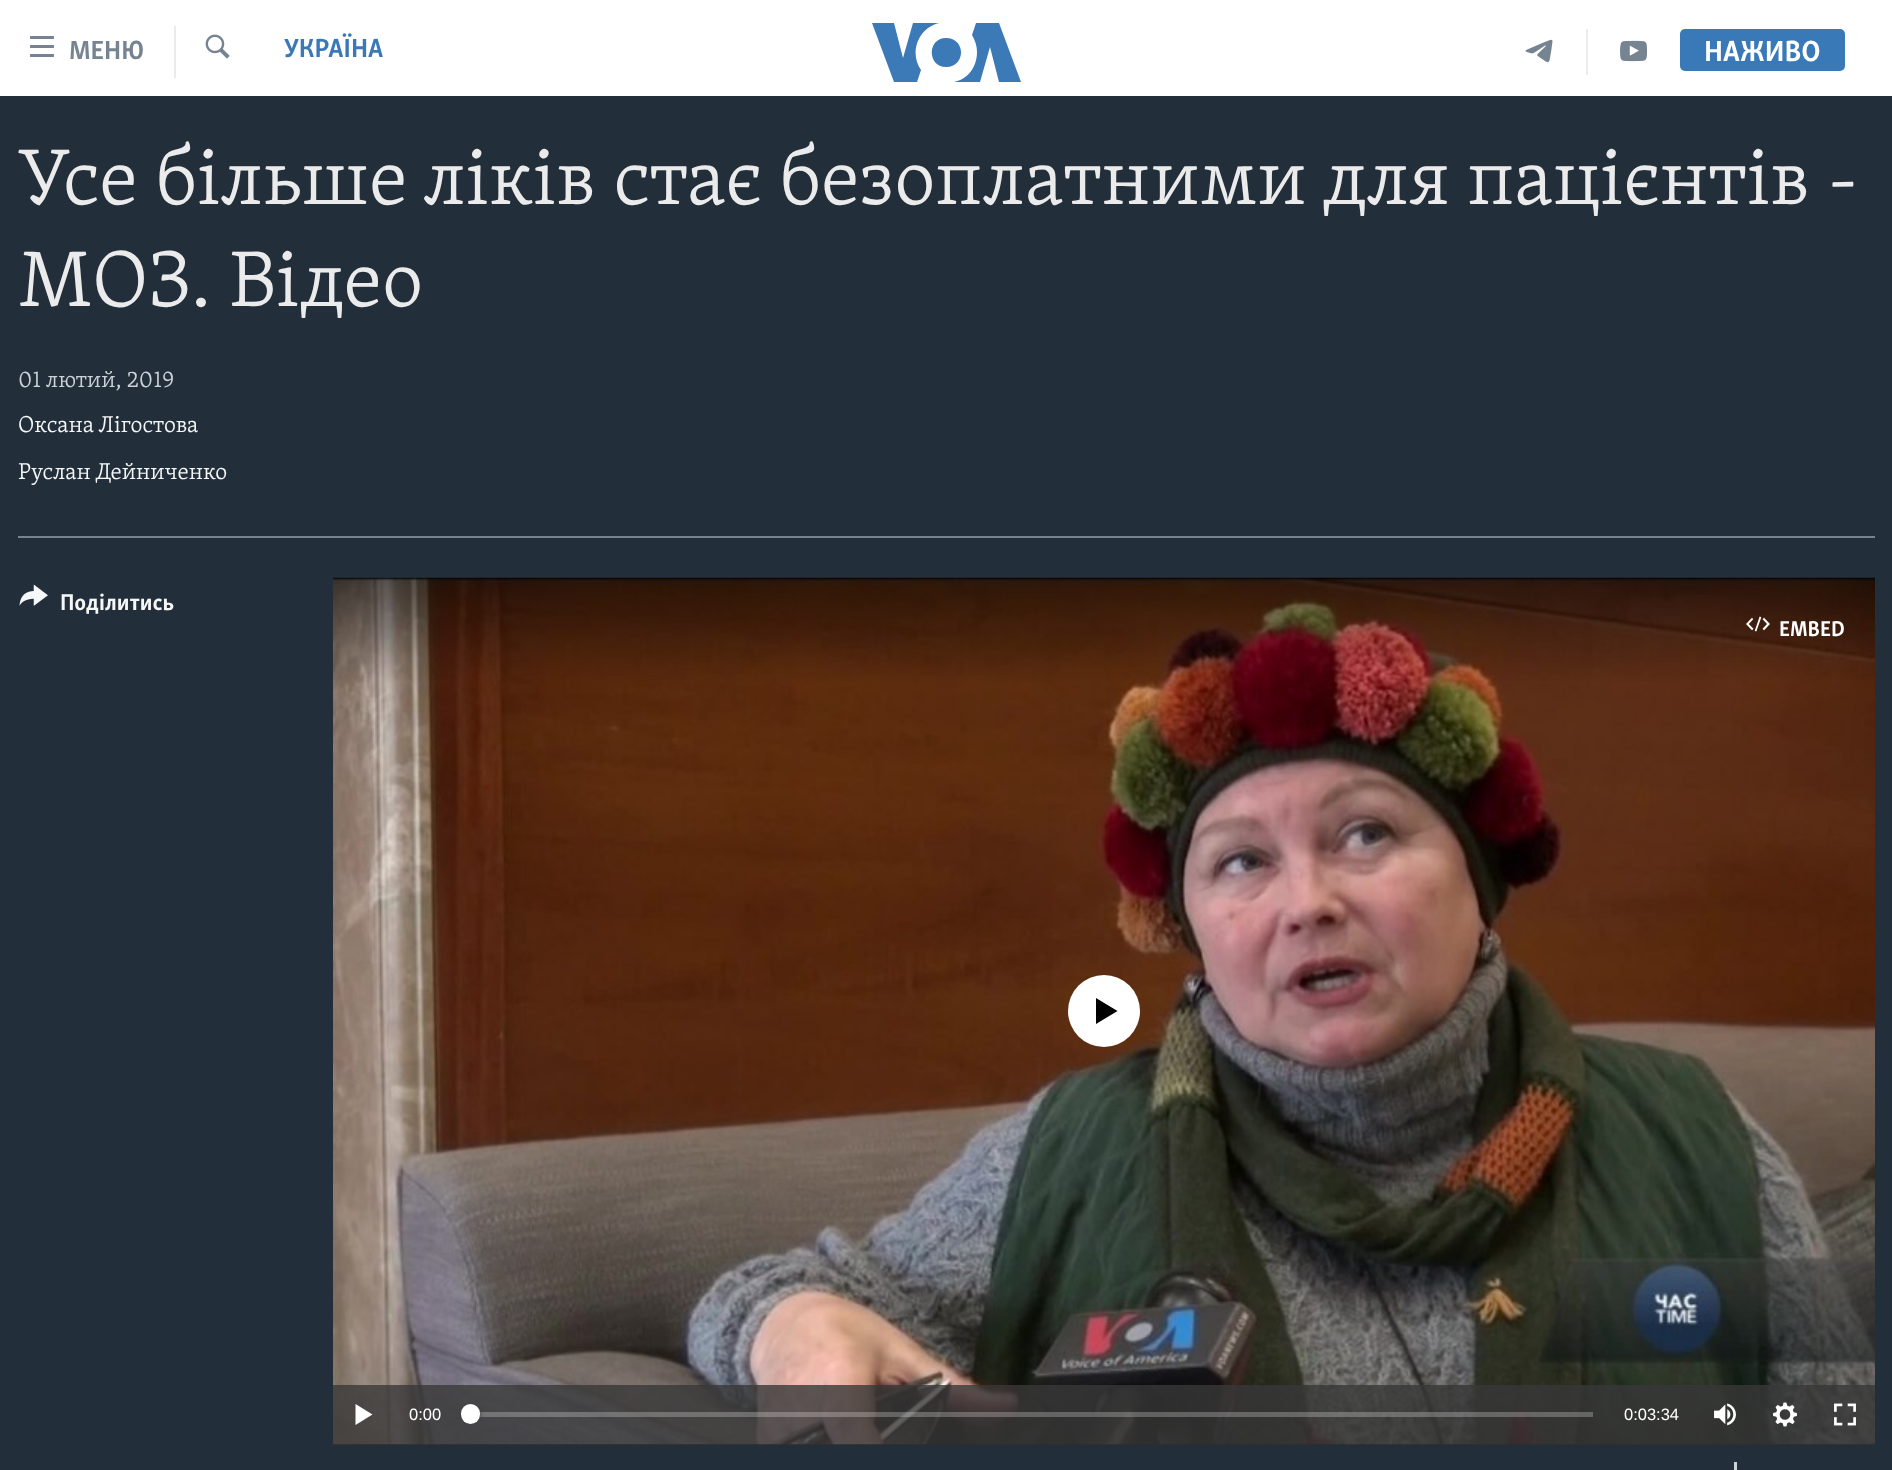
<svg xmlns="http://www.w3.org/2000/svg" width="1892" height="1470">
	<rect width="100%" height="100%" fill="#FFFFFF" />
	<image x="30" y="36" width="24" height="21" href="assets/img1.png" />
	<text x="69" y="59" font-family="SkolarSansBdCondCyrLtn" font-size="27" font-weight="700" fill="#768492">МЕНЮ</text>
	<rect x="174" y="26" width="2" height="52" fill="#EBEBEB" />
	<image x="205" y="34" width="25" height="25" href="assets/img2.png" />
	<text x="284" y="57" font-family="SkolarSansBdCondCyrLtn" font-size="27" font-weight="700" fill="#3A79B7">УКРАЇНА</text>
	<path d="M921 70L917 82H894L872 23H894L903 58L913 23H939C918 28 909 53 921 70ZM946 38C927 38 927 67 946 67C966 67 966 38 946 38ZM977 52C977 67 968 79 954 82H980L990 47L999 82H1021L999 23H976L972 35C975 40 977 46 977 52Z" fill="#3B79B7" />
	<rect x="1586" y="29" width="2" height="46" fill="#EBEBEB" />
	<image x="1525" y="39" width="28" height="24" href="assets/img3.png" />
	<image x="1620" y="40" width="27" height="22" href="assets/img4.png" />
	<rect x="1680" y="29" width="165" height="42" rx="5" fill="#3A79B7" />
	<text x="1704" y="61" font-family="SkolarSansBdCondCyrLtn" font-size="30" font-weight="700" fill="#FFFFFF">НАЖИВО</text>
	<rect x="0" y="96" width="1892" height="1374" fill="#222F3A" />
	<g font-family="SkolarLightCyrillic" font-size="81" font-weight="300" fill="#EBEBEB">
		<text x="18" y="204">Усе більше ліків стає безоплатними для пацієнтів -</text>
		<text x="18" y="306">МОЗ. Відео</text>
	</g>
	<text x="18" y="387" font-family="SkolarLightCyrillic" font-size="23.6" font-weight="300" fill="#CBD1D6">01 лютий, 2019</text>
	<g font-family="SkolarLightCyrillic" font-size="23.6" font-weight="300" fill="#F6F7F8">
		<text x="18" y="432">Оксана Лігостова</text>
		<text x="18" y="479">Руслан Дейниченко</text>
	</g>
	<rect x="18" y="536" width="1857" height="2" fill="#768492" />
	<image x="19" y="584" width="29" height="22" href="assets/img5.png" />
	<text x="60" y="610" font-family="SkolarSansBdCondCyrLtn" font-size="23.6" font-weight="700" fill="#F6F7F8">Поділитись</text>
	<rect x="333" y="1444" width="1542" height="1" fill="#000000" />
	<image x="333" y="577" width="1542" height="868" href="assets/img6.png" />
	<image x="1746" y="616" width="24" height="16" href="assets/img7.png" />
	<text x="1779" y="636" font-family="SkolarSansBdCondCyrLtn" font-size="22" font-weight="700" fill="#FFFFFF">EMBED</text>
	<circle cx="1104" cy="1011" r="36" fill="#FFFFFF" />
	<path d="M1096 1024L1117.5 1011L1096 998Z" fill="#000000" />
	<rect x="333" y="1385" width="1542" height="60" fill="#383838" fill-opacity="0.8" />
	<path d="M355.5 1425L372.5 1414.5L355.5 1404Z" fill="#FFFFFF" />
	<text x="409" y="1420" font-family="Liberation Sans" font-size="16.5" fill="#FFFFFF">0:00</text>
	<rect x="479" y="1412" width="1114" height="5" fill="#FFFFFF" fill-opacity="0.25" />
	<rect x="461" y="1404" width="19" height="20" rx="9.5" fill="#414144" filter="blur(2px)" />
	<rect x="461" y="1404" width="19" height="20" rx="9.5" fill="#FFFFFF" />
	<text x="1624" y="1420" font-family="Liberation Sans" font-size="16.5" fill="#FFFFFF">0:03:34</text>
	<image x="1714" y="1403" width="22" height="23" href="assets/img8.png" />
	<image x="1773" y="1402" width="24" height="25" href="assets/img9.png" />
	<image x="1834" y="1403" width="22" height="23" href="assets/img10.png" />
	<rect x="1734" y="1462" width="3" height="8" fill="#CBD1D6" />
</svg>
